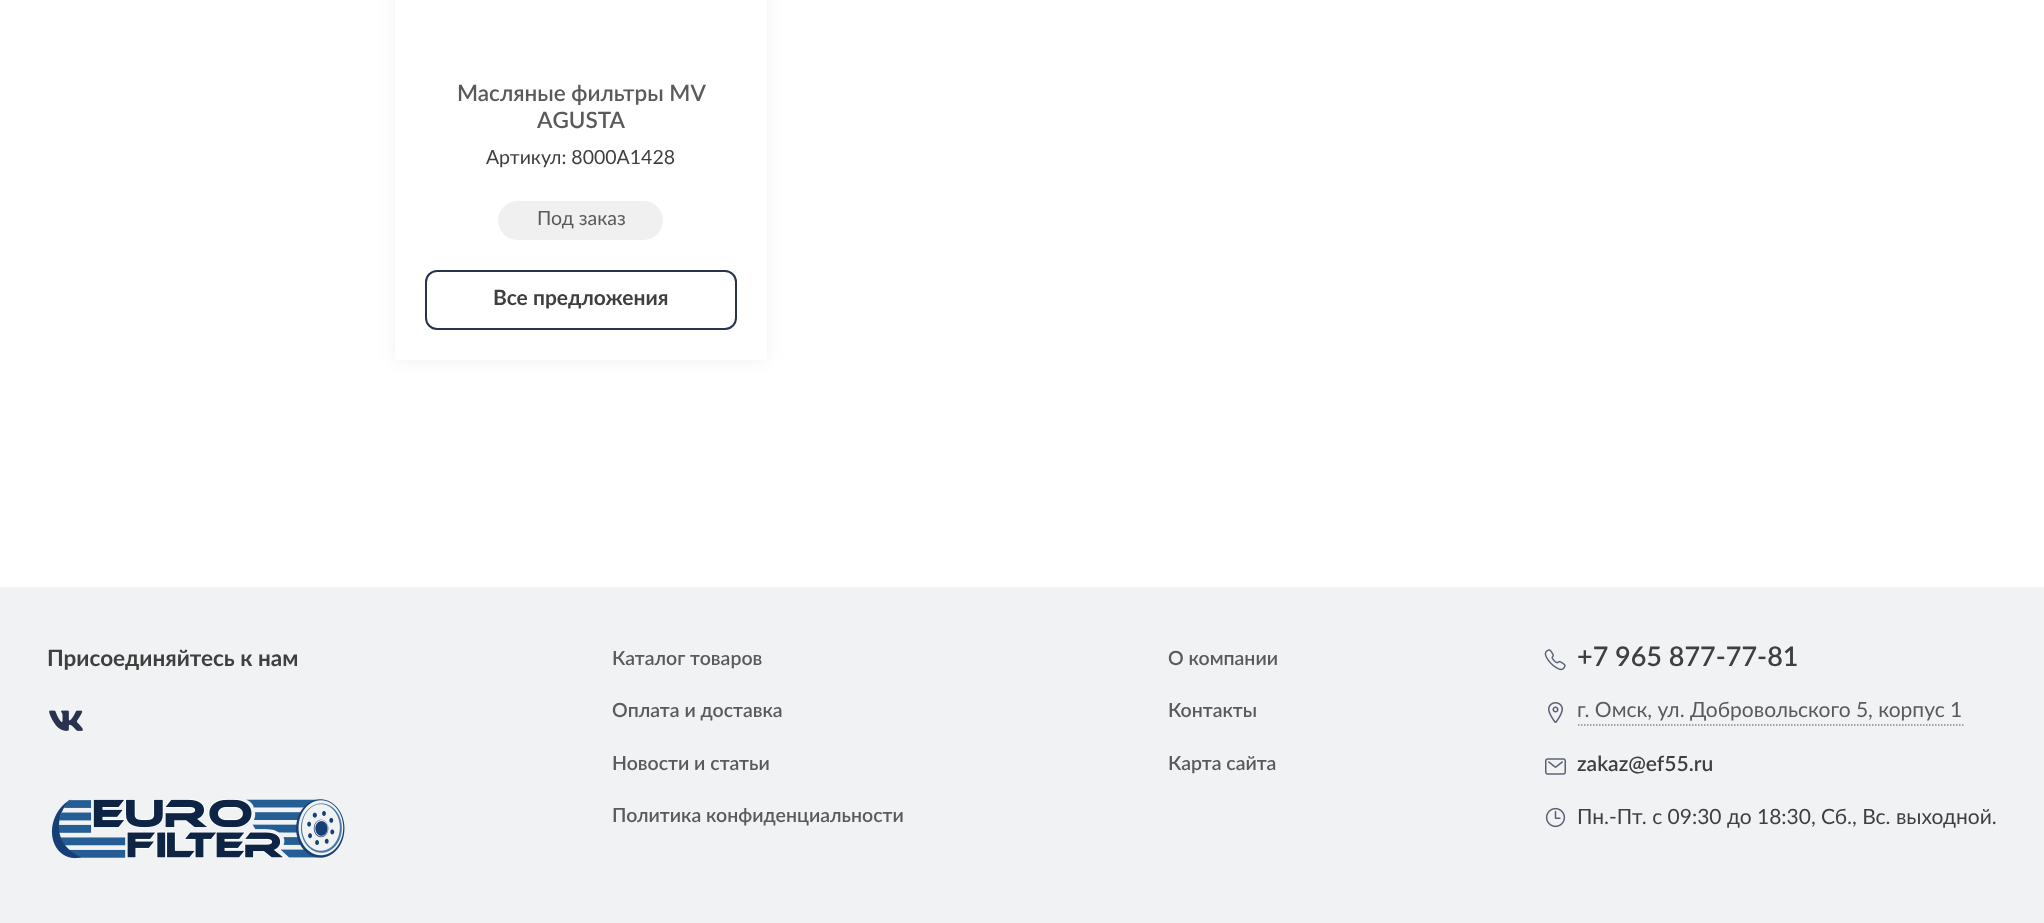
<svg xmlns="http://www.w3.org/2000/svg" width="2044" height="923">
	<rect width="100%" height="100%" fill="#FFFFFF" />
	<rect x="395" y="-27" width="372" height="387" fill="#0D1426" fill-opacity="0.06" filter="blur(9px)" />
	<rect x="395" y="0" width="372" height="360" fill="#FFFFFF" />
	<rect x="551" y="3" width="2" height="1" fill="#FEFFFA" />
	<g font-family="Lato" font-size="22.5" font-weight="600" fill="#5A5A5A">
		<text x="457" y="101">Масляные фильтры MV</text>
		<text x="537" y="128">AGUSTA</text>
	</g>
	<text x="486" y="164" font-family="Lato" font-size="19.5" fill="#3F3F3F">Артикул: 8000A1428</text>
	<rect x="498" y="201" width="165" height="39" rx="19.5" fill="#F0F0F0" />
	<text x="537" y="225" font-family="Lato" font-size="19.5" fill="#5A5A5A">Под заказ</text>
	<rect x="426" y="271" width="310" height="58" rx="11" fill="none" stroke="#293350" stroke-width="2" />
	<text x="493" y="305" font-family="Lato" font-size="21" font-weight="700" fill="#3F3F3F">Все предложения</text>
	<rect x="0" y="587" width="2044" height="336" fill="#F1F2F3" />
	<text x="47" y="666" font-family="Lato" font-size="22.5" font-weight="700" fill="#3F3F3F">Присоединяйтесь к нам</text>
	<image x="49" y="710" width="34" height="21" href="assets/img1.png" />
	<image x="51" y="799" width="294" height="60" href="assets/img2.png" />
	<g font-family="Lato" font-size="19.5" font-weight="600" fill="#5A5A5A">
		<text x="612" y="665">Каталог товаров</text>
		<text x="612" y="717">Оплата и доставка</text>
		<text x="612" y="770">Новости и статьи</text>
		<text x="612" y="822">Политика конфиденциальности</text>
		<text x="1168" y="665">О компании</text>
		<text x="1168" y="717">Контакты</text>
		<text x="1168" y="770">Карта сайта</text>
	</g>
	<image x="1544" y="649" width="22" height="22" href="assets/img3.png" />
	<text x="1577" y="666" font-family="Lato" font-size="27" font-weight="600" fill="#3F3F3F">+7 965 877-77-81</text>
	<image x="1548" y="702" width="15" height="21" href="assets/img4.png" />
	<path d="M1578 725H1963.5" fill="none" stroke="#888888" stroke-width="1.5" stroke-dasharray="1.5 1.5" />
	<text x="1577" y="717" font-family="Lato" font-size="21" fill="#5A5A5A">г. Омск, ул. Добровольского 5, корпус 1</text>
	<image x="1545" y="758" width="21" height="17" href="assets/img5.png" />
	<text x="1577" y="771" font-family="Lato" font-size="21" font-weight="600" fill="#3F3F3F">zakaz@ef55.ru</text>
	<image x="1545" y="807" width="21" height="21" href="assets/img6.png" />
	<text x="1577" y="824" font-family="Lato" font-size="21" fill="#3F3F3F">Пн.-Пт. с 09:30 до 18:30, Сб., Вс. выходной.</text>
</svg>
